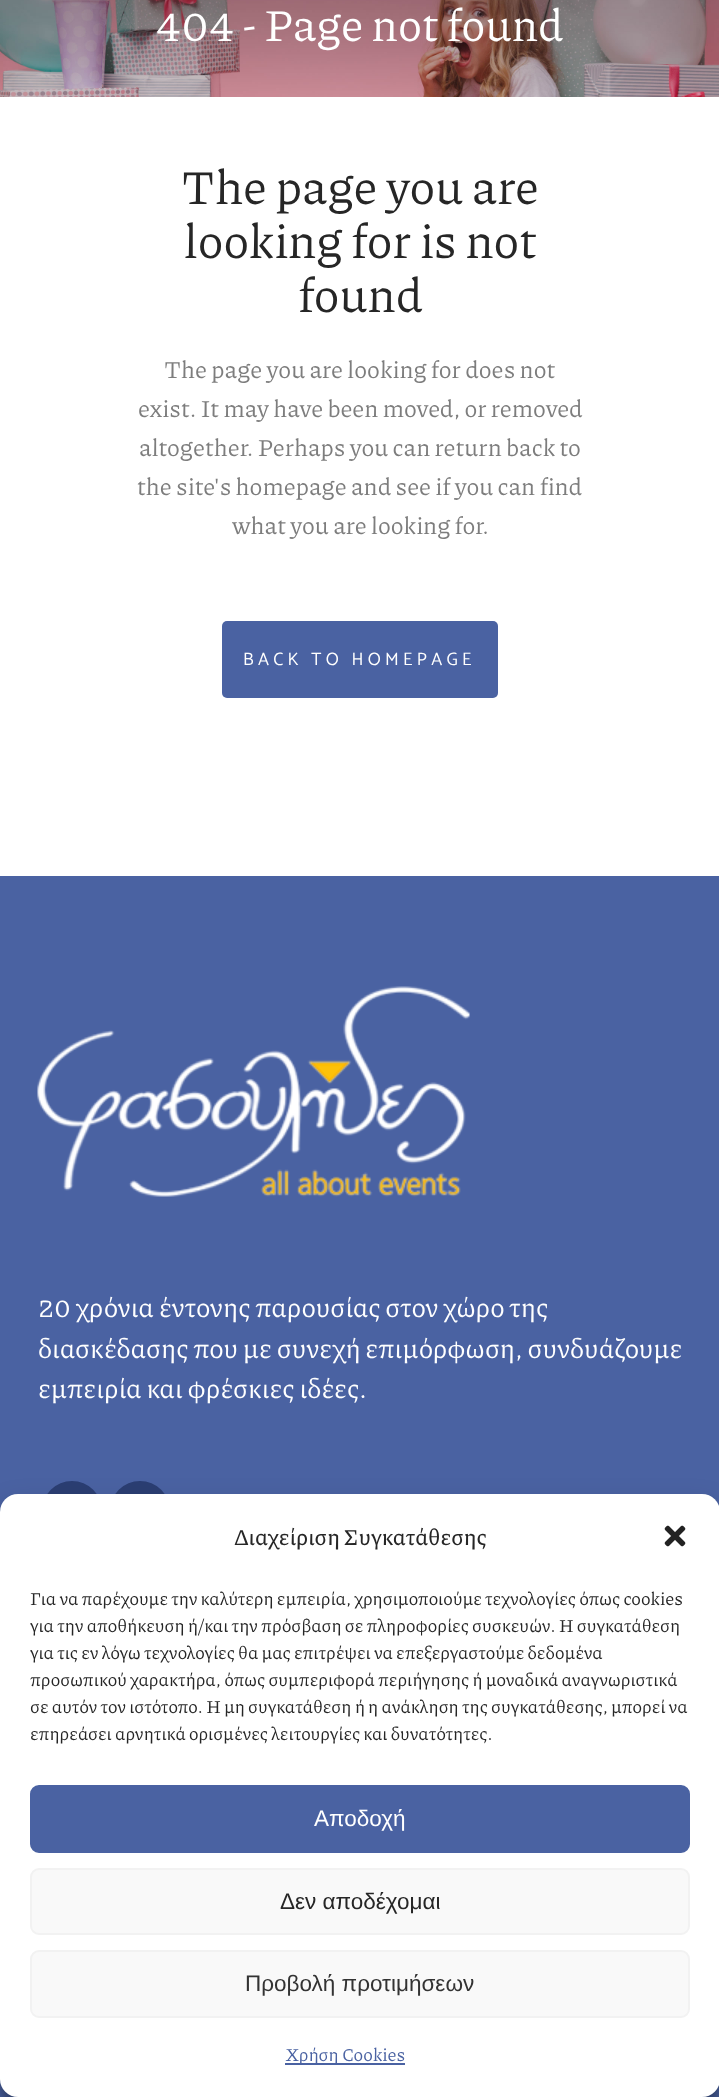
<svg xmlns="http://www.w3.org/2000/svg" width="719" height="2097">
	<rect width="100%" height="100%" fill="#FFFFFF" />
	<image x="0" y="0" width="719" height="97" href="assets/img1.png" />
	<text x="156" y="41" font-family="Piazzolla" font-size="45" fill="#FFFFFF">404 - Page not found</text>
	<g font-family="Piazzolla" font-size="48" fill="#262626">
		<text x="181" y="204">The page you are</text>
		<text x="184" y="258">looking for is not</text>
		<text x="298" y="312">found</text>
	</g>
	<g font-family="Piazzolla" font-size="24" fill="#7D7D7D">
		<text x="164" y="378">The page you are looking for does not</text>
		<text x="138" y="417">exist. It may have been moved, or removed</text>
		<text x="139" y="456">altogether. Perhaps you can return back to</text>
		<text x="137" y="495">the site's homepage and see if you can find</text>
		<text x="232" y="534">what you are looking for.</text>
	</g>
	<rect x="222" y="621" width="276" height="77" rx="5" fill="#4A62A2" />
	<text x="243" y="665" font-family="Catamaran" font-size="18" letter-spacing="4.3" fill="#FFFFFF">BACK TO HOMEPAGE</text>
	<rect x="0" y="876" width="719" height="1221" fill="#4A62A2" />
	<image x="37" y="986" width="433" height="211" href="assets/img2.png" />
	<g font-family="Piazzolla" font-size="27" fill="#FFFFFF">
		<text x="38" y="1317">20 χρόνια έντονης παρουσίας στον χώρο της</text>
		<text x="38" y="1358">διασκέδασης που με συνεχή επιμόρφωση, συνδυάζουμε</text>
		<text x="38" y="1398">εμπειρία και φρέσκιες ιδέες.</text>
	</g>
	<circle cx="72" cy="1511" r="30" fill="#2B3E72" />
	<circle cx="140" cy="1511" r="30" fill="#2B3E72" />
	<rect x="0" y="1503" width="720" height="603" rx="18" fill="#000000" fill-opacity="0.23" filter="blur(4.5px)" />
	<rect x="0" y="1509" width="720" height="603" rx="18" fill="#000000" fill-opacity="0.19" filter="blur(15px)" />
	<rect x="0" y="1494" width="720" height="603" rx="18" fill="#FFFFFF" />
	<text x="234" y="1545" font-family="Piazzolla" font-size="22.5" font-weight="500" fill="#262626">Διαχείριση Συγκατάθεσης</text>
	<image x="664" y="1525" width="22" height="22" href="assets/img3.png" />
	<g font-family="Piazzolla" font-size="18" fill="#262626">
		<text x="30" y="1605">Για να παρέχουμε την καλύτερη εμπειρία, χρησιμοποιούμε τεχνολογίες όπως cookies</text>
		<text x="30" y="1632">για την αποθήκευση ή/και την πρόσβαση σε πληροφορίες συσκευών. Η συγκατάθεση</text>
		<text x="30" y="1659">για τις εν λόγω τεχνολογίες θα μας επιτρέψει να επεξεργαστούμε δεδομένα</text>
		<text x="30" y="1686">προσωπικού χαρακτήρα, όπως συμπεριφορά περιήγησης ή μοναδικά αναγνωριστικά</text>
		<text x="30" y="1713">σε αυτόν τον ιστότοπο. Η μη συγκατάθεση ή η ανάκληση της συγκατάθεσης, μπορεί να</text>
		<text x="30" y="1740">επηρεάσει αρνητικά ορισμένες λειτουργίες και δυνατότητες.</text>
	</g>
	<rect x="31" y="1786" width="658" height="66" rx="8" fill="#4A62A2" stroke="#4A62A2" stroke-width="2" />
	<text x="314" y="1826" font-family="Liberation Sans" font-size="22.5" fill="#FFFFFF">Αποδοχή</text>
	<rect x="31" y="1869" width="658" height="65" rx="8" fill="#F9F9F9" stroke="#F2F2F2" stroke-width="2" />
	<text x="280" y="1909" font-family="Liberation Sans" font-size="22.5" fill="#262626">Δεν αποδέχομαι</text>
	<rect x="31" y="1951" width="658" height="66" rx="8" fill="#F9F9F9" stroke="#F2F2F2" stroke-width="2" />
	<text x="245" y="1991" font-family="Liberation Sans" font-size="22.5" fill="#333333">Προβολή προτιμήσεων</text>
	<rect x="285" y="2063" width="120" height="2" fill="#4A62A2" />
	<text x="285" y="2061" font-family="Piazzolla" font-size="18" fill="#4A62A2">Χρήση Cookies</text>
</svg>
